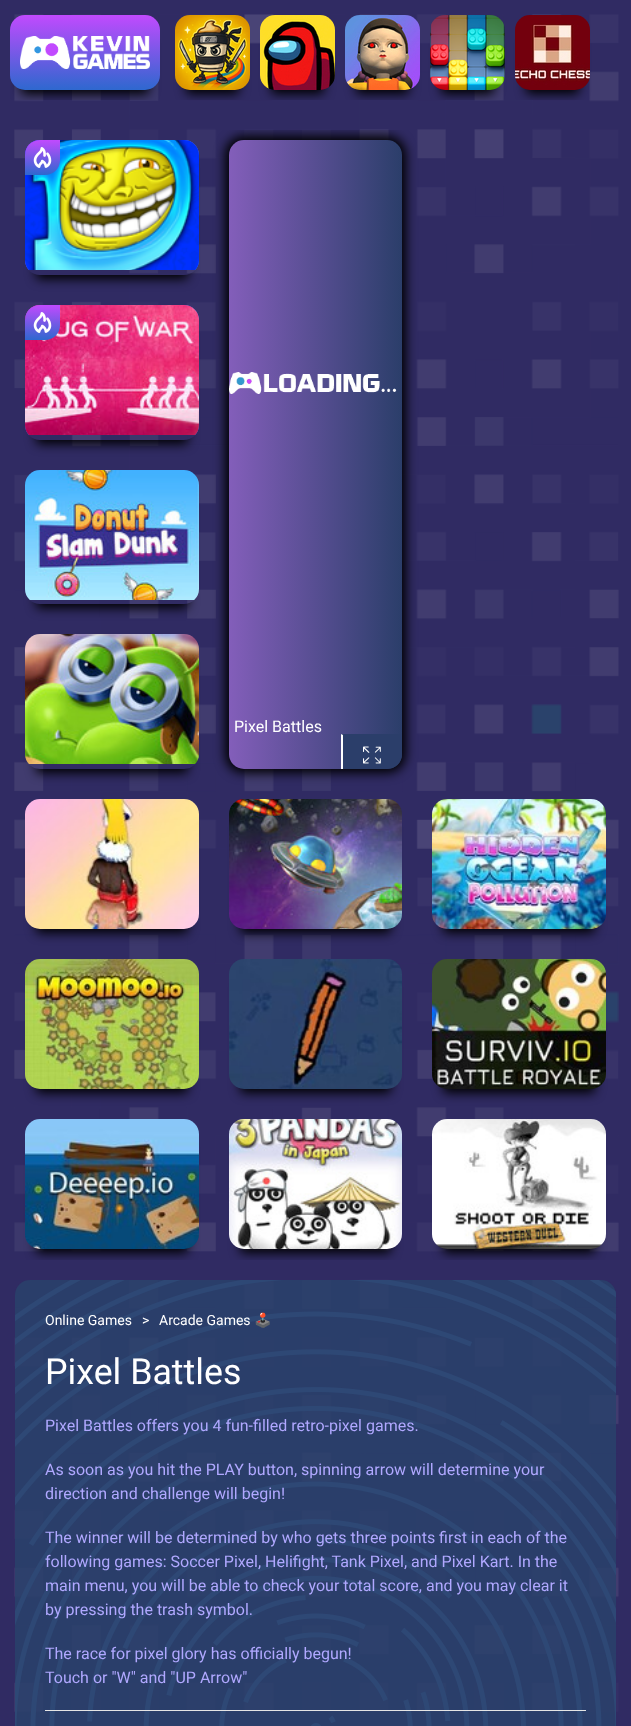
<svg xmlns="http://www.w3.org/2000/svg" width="631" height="1726">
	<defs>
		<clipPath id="clip1"><rect x="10" y="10" width="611" height="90" /></clipPath>
		<linearGradient id="g1" gradientUnits="userSpaceOnUse" x1="85" y1="90" x2="85" y2="15"><stop offset="0" stop-color="#2E68CF" /><stop offset="1" stop-color="#C14AFE" /></linearGradient>
		<clipPath id="clip2"><path d="M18 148H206V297H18ZM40 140H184C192.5 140 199 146.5 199 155V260C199 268.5 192.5 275 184 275H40C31.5 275 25 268.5 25 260V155C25 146.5 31.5 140 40 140Z" clip-rule="evenodd" /></clipPath>
		<linearGradient id="g2" gradientUnits="userSpaceOnUse" x1="43" y1="175" x2="43" y2="140"><stop offset="0" stop-color="#2E68CF" /><stop offset="1" stop-color="#C14AFE" /></linearGradient>
		<clipPath id="clip3"><path d="M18 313H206V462H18ZM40 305H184C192.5 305 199 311.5 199 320V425C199 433.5 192.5 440 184 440H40C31.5 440 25 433.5 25 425V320C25 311.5 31.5 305 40 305Z" clip-rule="evenodd" /></clipPath>
		<linearGradient id="g3" gradientUnits="userSpaceOnUse" x1="43" y1="340" x2="43" y2="305"><stop offset="0" stop-color="#2E68CF" /><stop offset="1" stop-color="#C14AFE" /></linearGradient>
		<clipPath id="clip4"><path d="M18 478H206V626H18ZM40 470H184C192.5 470 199 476.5 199 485V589C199 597.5 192.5 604 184 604H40C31.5 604 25 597.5 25 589V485C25 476.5 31.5 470 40 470Z" clip-rule="evenodd" /></clipPath>
		<clipPath id="clip5"><path d="M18 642H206V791H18ZM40 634H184C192.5 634 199 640.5 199 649V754C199 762.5 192.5 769 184 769H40C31.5 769 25 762.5 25 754V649C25 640.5 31.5 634 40 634Z" clip-rule="evenodd" /></clipPath>
		<clipPath id="clip6"><rect x="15" y="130" width="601" height="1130" /></clipPath>
		<linearGradient id="g4" gradientUnits="userSpaceOnUse" x1="229" y1="475" x2="402" y2="475"><stop offset="0" stop-color="#835EBA" /><stop offset="1" stop-color="#2B3E6A" /></linearGradient>
	</defs>
	<rect width="100%" height="100%" fill="#302B63" />
	<image x="14" y="14" width="605" height="1698" href="assets/img1.png" />
	<g clip-path="url(#clip1)">
		<rect x="21" y="41" width="128" height="53" rx="4" fill="#000000" filter="blur(5.5px)" />
	</g>
	<rect x="10" y="15" width="150" height="75" rx="15" fill="url(#g1)" />
	<image x="20" y="36" width="130" height="33" href="assets/img2.png" />
	<g clip-path="url(#clip1)">
		<rect x="186" y="41" width="53" height="53" rx="4" fill="#000000" filter="blur(5.5px)" />
	</g>
	<image x="175" y="15" width="75" height="75" href="assets/img3.png" />
	<g clip-path="url(#clip1)">
		<rect x="271" y="41" width="53" height="53" rx="4" fill="#000000" filter="blur(5.5px)" />
	</g>
	<image x="260" y="15" width="75" height="75" href="assets/img4.png" />
	<g clip-path="url(#clip1)">
		<rect x="356" y="41" width="53" height="53" rx="4" fill="#000000" filter="blur(5.5px)" />
	</g>
	<image x="345" y="15" width="75" height="75" href="assets/img5.png" />
	<g clip-path="url(#clip1)">
		<rect x="441" y="41" width="53" height="53" rx="4" fill="#000000" filter="blur(5.5px)" />
	</g>
	<image x="430" y="15" width="75" height="75" href="assets/img6.png" />
	<g clip-path="url(#clip1)">
		<rect x="526" y="41" width="53" height="53" rx="4" fill="#000000" filter="blur(5.5px)" />
	</g>
	<image x="515" y="15" width="75" height="75" href="assets/img7.png" />
	<g clip-path="url(#clip2)">
		<rect x="36" y="166" width="152" height="113" rx="4" fill="#000000" filter="blur(5.5px)" />
	</g>
	<image x="25" y="140" width="174" height="130" href="assets/img8.png" />
	<image x="25" y="140" width="174" height="130" href="assets/img9.png" />
	<path d="M40 140H60V160C60 168.5 53.5 175 45 175H25V155C25 146.5 31.5 140 40 140Z" fill="url(#g2)" />
	<image x="33" y="147" width="19" height="21" href="assets/img10.png" />
	<g clip-path="url(#clip3)">
		<rect x="36" y="331" width="152" height="113" rx="4" fill="#000000" filter="blur(5.5px)" />
	</g>
	<image x="25" y="305" width="174" height="130" href="assets/img11.png" />
	<image x="25" y="305" width="174" height="130" href="assets/img12.png" />
	<path d="M40 305H60V325C60 333.5 53.5 340 45 340H25V320C25 311.5 31.5 305 40 305Z" fill="url(#g3)" />
	<image x="33" y="312" width="19" height="21" href="assets/img10.png" />
	<g clip-path="url(#clip4)">
		<rect x="36" y="496" width="152" height="112" rx="4" fill="#000000" filter="blur(5.5px)" />
	</g>
	<image x="25" y="470" width="174" height="130" href="assets/img13.png" />
	<g clip-path="url(#clip5)">
		<rect x="36" y="660" width="152" height="113" rx="4" fill="#000000" filter="blur(5.5px)" />
	</g>
	<image x="25" y="634" width="174" height="130" href="assets/img14.png" />
	<g clip-path="url(#clip6)">
		<rect x="225" y="136" width="181" height="637" rx="19" fill="#000000" filter="blur(5.5px)" />
	</g>
	<rect x="229" y="140" width="173" height="629" rx="15" fill="url(#g4)" />
	<image x="229" y="372" width="168" height="22" href="assets/img15.png" />
	<text x="234" y="732" font-family="Roboto" font-size="16" fill="#FFFFFF">Pixel Battles</text>
	<path d="M341 734H402V754C402 762.5 395.5 769 387 769H341Z" fill="#2B3E6A" />
	<path d="M343 769H341V734L343 735Z" fill="#FFFFFF" />
	<image x="363" y="746" width="18" height="18" href="assets/img16.png" />
	<rect x="36" y="825" width="152" height="108" rx="4" fill="#000000" filter="blur(5.5px)" />
	<image x="25" y="799" width="174" height="130" href="assets/img17.png" />
	<rect x="240" y="825" width="151" height="108" rx="4" fill="#000000" filter="blur(5.5px)" />
	<image x="229" y="799" width="173" height="130" href="assets/img18.png" />
	<rect x="443" y="825" width="152" height="108" rx="4" fill="#000000" filter="blur(5.5px)" />
	<image x="432" y="799" width="174" height="130" href="assets/img19.png" />
	<rect x="36" y="985" width="152" height="108" rx="4" fill="#000000" filter="blur(5.5px)" />
	<image x="25" y="959" width="174" height="130" href="assets/img20.png" />
	<rect x="240" y="985" width="151" height="108" rx="4" fill="#000000" filter="blur(5.5px)" />
	<image x="229" y="959" width="173" height="130" href="assets/img21.png" />
	<rect x="443" y="985" width="152" height="108" rx="4" fill="#000000" filter="blur(5.5px)" />
	<image x="432" y="959" width="174" height="130" href="assets/img22.png" />
	<g clip-path="url(#clip6)">
		<rect x="36" y="1145" width="152" height="108" rx="4" fill="#000000" filter="blur(5.5px)" />
	</g>
	<image x="25" y="1119" width="174" height="130" href="assets/img23.png" />
	<g clip-path="url(#clip6)">
		<rect x="240" y="1145" width="151" height="108" rx="4" fill="#000000" filter="blur(5.5px)" />
	</g>
	<image x="229" y="1119" width="173" height="130" href="assets/img24.png" />
	<g clip-path="url(#clip6)">
		<rect x="443" y="1145" width="152" height="108" rx="4" fill="#000000" filter="blur(5.5px)" />
	</g>
	<image x="432" y="1119" width="174" height="130" href="assets/img25.png" />
	<rect x="15" y="1280" width="601" height="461" rx="15" fill="#2A426B" fill-opacity="0.84" />
	<image x="15" y="1280" width="601" height="446" href="assets/img26.png" />
	<g font-family="Roboto" font-size="14" fill="#FFFFFF">
		<text x="45" y="1325">Online Games</text>
		<text x="142" y="1325">&gt;</text>
		<text x="159" y="1325">Arcade Games</text>
	</g>
	<text x="254" y="1325" font-family="Noto Color Emoji" font-size="14" fill="#FFFFFF">🕹</text>
	<text x="45" y="1384" font-family="Roboto" font-size="35.75" fill="#FFFFFF">Pixel Battles</text>
	<g font-family="Roboto" font-size="16" fill="#B0A8FF">
		<text x="45" y="1431">Pixel Battles offers you 4 fun-filled retro-pixel games.</text>
		<text x="45" y="1475">As soon as you hit the PLAY button, spinning arrow will determine your</text>
		<text x="45" y="1499">direction and challenge will begin!</text>
		<text x="45" y="1543">The winner will be determined by who gets three points first in each of the</text>
		<text x="45" y="1567">following games: Soccer Pixel, Helifight, Tank Pixel, and Pixel Kart. In the</text>
		<text x="45" y="1591">main menu, you will be able to check your total score, and you may clear it</text>
		<text x="45" y="1615">by pressing the trash symbol.</text>
		<text x="45" y="1659">The race for pixel glory has officially begun!</text>
		<text x="45" y="1683">Touch or "W" and "UP Arrow"</text>
	</g>
	<rect x="45" y="1710" width="541" height="1" fill="#E5E5E5" />
</svg>
